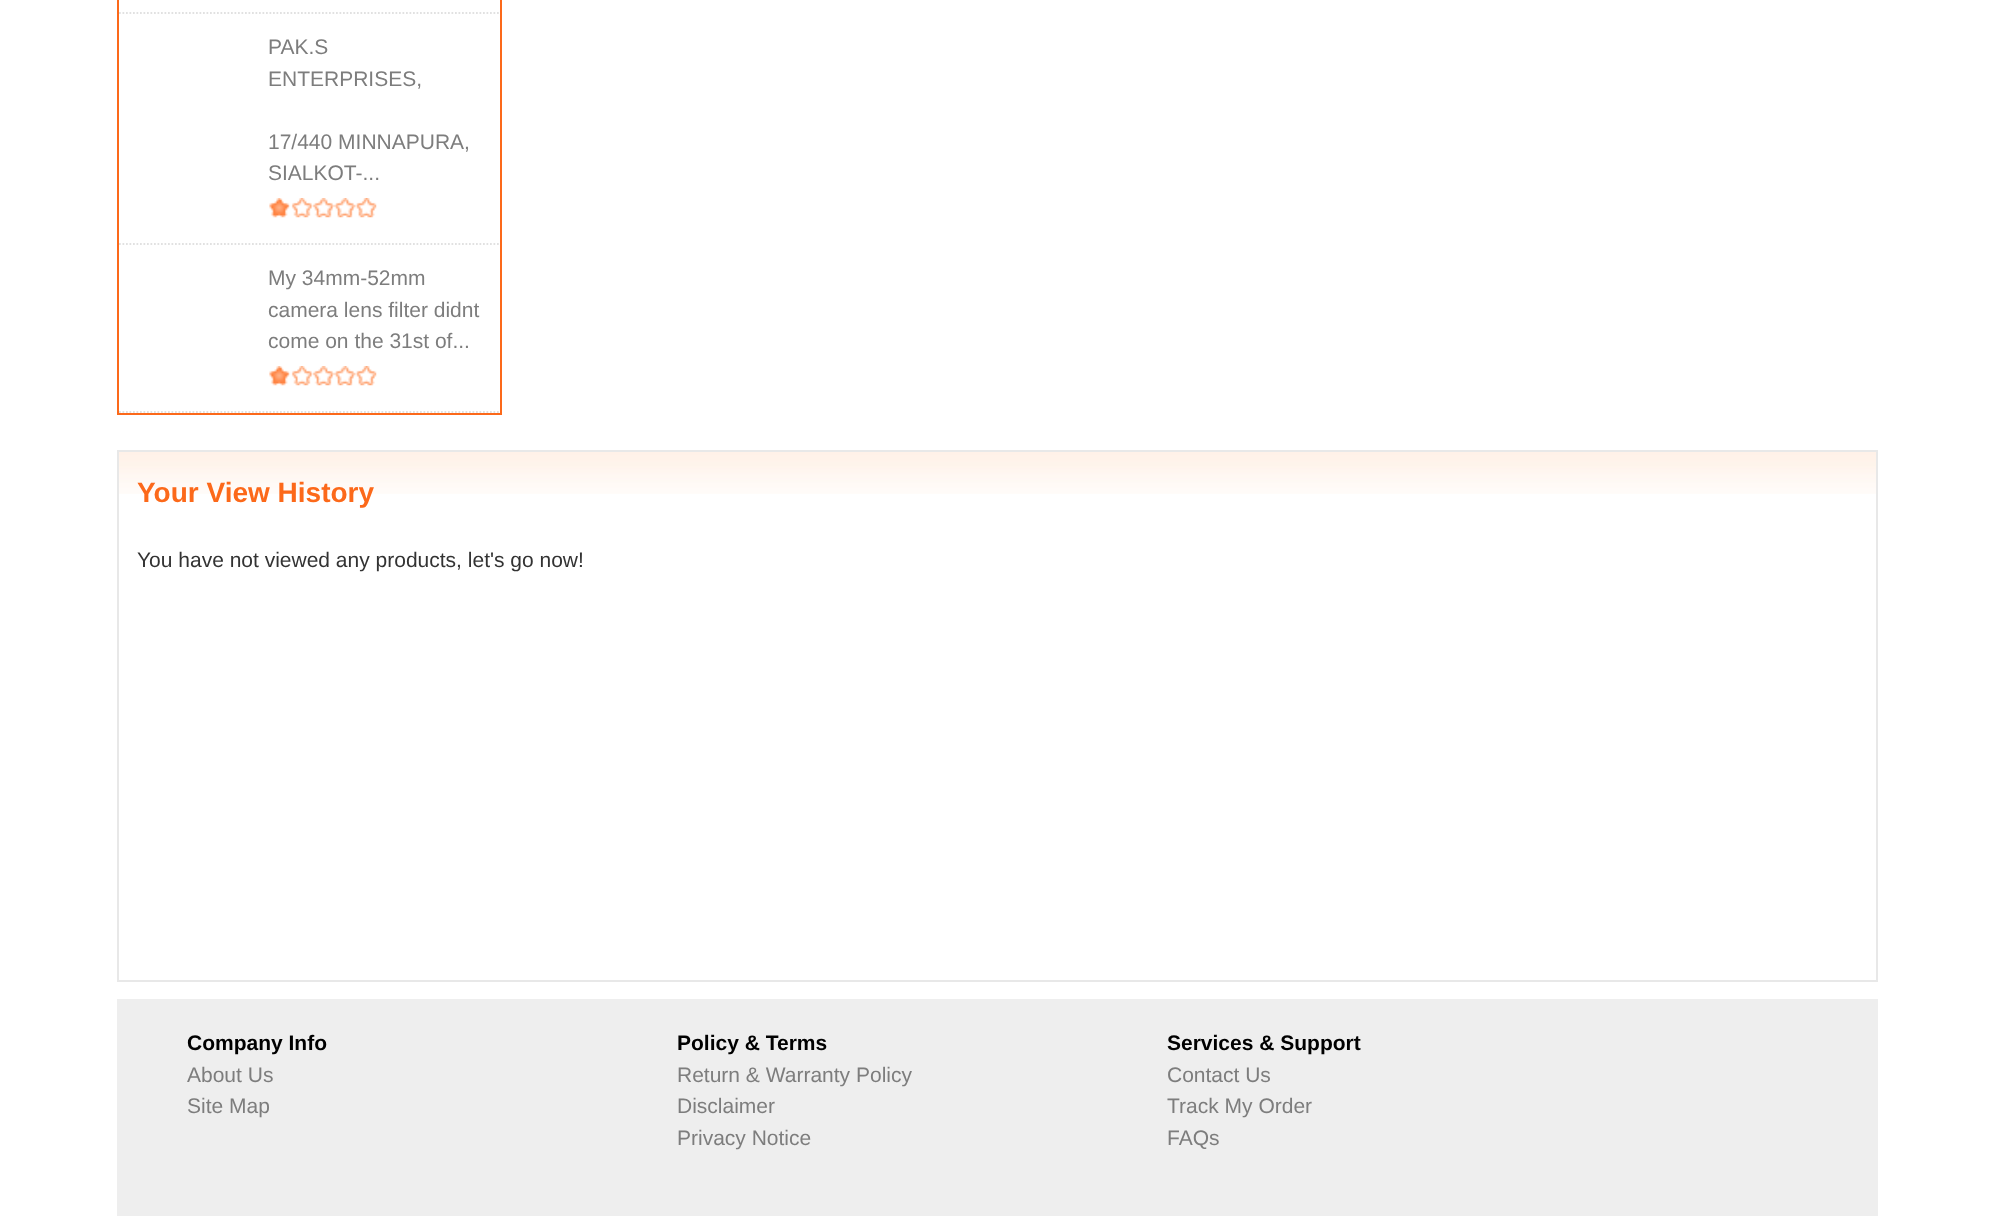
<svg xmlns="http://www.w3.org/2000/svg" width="1995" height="1216">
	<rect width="100%" height="100%" fill="#FFFFFF" />
	<rect x="118" y="-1" width="383" height="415" fill="none" stroke="#FC691A" stroke-width="2" />
	<path d="M119 13H500.5" fill="none" stroke="#E1E1E1" stroke-width="1.8" stroke-dasharray="1.75 1.75" />
	<path d="M119 244H500.5" fill="none" stroke="#E1E1E1" stroke-width="1.8" stroke-dasharray="1.75 1.75" />
	<g font-family="Liberation Sans" font-size="21" fill="#7D7D7D">
		<text x="268" y="54">PAK.S</text>
		<text x="268" y="86">ENTERPRISES,</text>
		<text x="268" y="149">17/440 MINNAPURA,</text>
		<text x="268" y="180">SIALKOT-...</text>
	</g>
	<image x="269" y="198" width="108" height="20" href="assets/img1.png" />
	<path d="M119 412H500.5" fill="none" stroke="#E1E1E1" stroke-width="1.8" stroke-dasharray="1.75 1.75" />
	<g font-family="Liberation Sans" font-size="21" fill="#7D7D7D">
		<text x="268" y="285">My 34mm-52mm</text>
		<text x="268" y="317">camera lens filter didnt</text>
		<text x="268" y="348">come on the 31st of...</text>
	</g>
	<image x="269" y="366" width="108" height="20" href="assets/img1.png" />
	<image x="119" y="452" width="1757" height="42" href="assets/img2.png" />
	<rect x="118" y="451" width="1759" height="530" fill="none" stroke="#E8E8E8" stroke-width="2" />
	<text x="137" y="502" font-family="Liberation Sans" font-size="28" font-weight="700" fill="#FC691A">Your View History</text>
	<text x="137" y="567" font-family="Liberation Sans" font-size="21" fill="#333333">You have not viewed any products, let's go now!</text>
	<rect x="117" y="999" width="1761" height="217" fill="#EEEEEE" />
	<text x="187" y="1050" font-family="Liberation Sans" font-size="21" font-weight="700" fill="#000000">Company Info</text>
	<g font-family="Liberation Sans" font-size="21" fill="#7D7D7D">
		<text x="187" y="1082">About Us</text>
		<text x="187" y="1113">Site Map</text>
	</g>
	<text x="677" y="1050" font-family="Liberation Sans" font-size="21" font-weight="700" fill="#000000">Policy &amp; Terms</text>
	<g font-family="Liberation Sans" font-size="21" fill="#7D7D7D">
		<text x="677" y="1082">Return &amp; Warranty Policy</text>
		<text x="677" y="1113">Disclaimer</text>
		<text x="677" y="1145">Privacy Notice</text>
	</g>
	<text x="1167" y="1050" font-family="Liberation Sans" font-size="21" font-weight="700" fill="#000000">Services &amp; Support</text>
	<g font-family="Liberation Sans" font-size="21" fill="#7D7D7D">
		<text x="1167" y="1082">Contact Us</text>
		<text x="1167" y="1113">Track My Order</text>
		<text x="1167" y="1145">FAQs</text>
	</g>
</svg>
